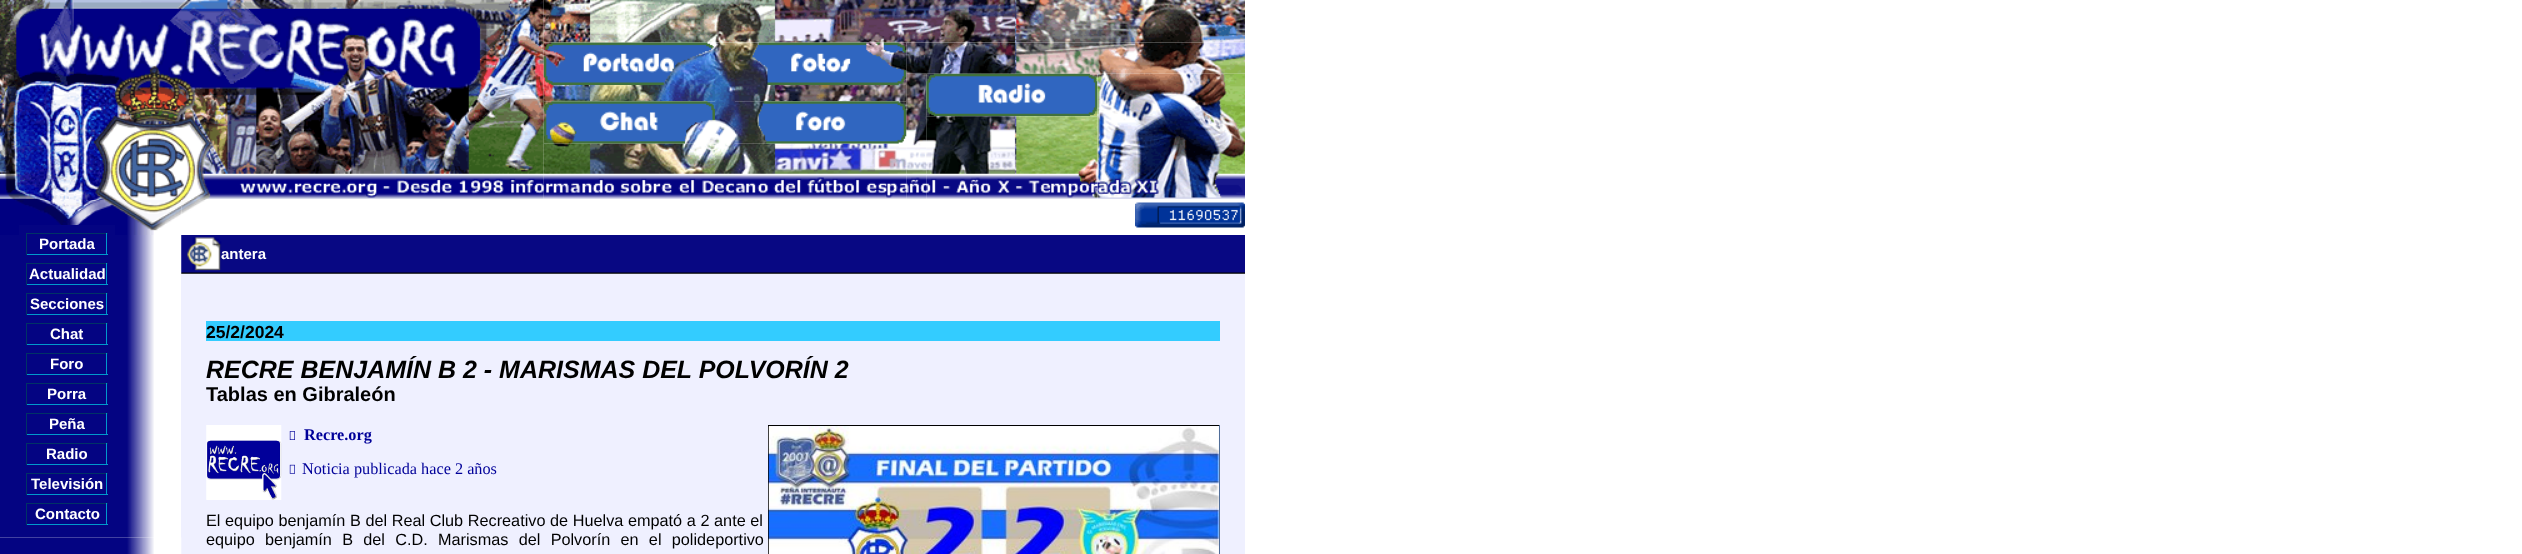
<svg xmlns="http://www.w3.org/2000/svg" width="2522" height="554">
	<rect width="100%" height="100%" fill="#FFFFFF" />
	<image x="1135" y="202" width="110" height="26" href="assets/img1.png" />
	<image x="0" y="200" width="182" height="35" href="assets/img18.png" />
	<rect x="19" y="225" width="96" height="10" fill="#040482" />
	<rect x="26" y="233" width="82" height="1" fill="#003366" />
	<image x="0" y="235" width="154" height="303" href="assets/img21.png" />
	<rect x="106" y="233" width="1" height="22" fill="#0099CC" />
	<rect x="26" y="254" width="82" height="1" fill="#0099CC" />
	<rect x="26" y="233" width="1" height="22" fill="#003366" />
	<text x="39" y="249" font-family="Liberation Sans" font-size="15" font-weight="700" fill="#FFFFFF">Portada</text>
	<rect x="26" y="263" width="82" height="1" fill="#003366" />
	<rect x="106" y="263" width="1" height="22" fill="#0099CC" />
	<rect x="26" y="284" width="82" height="1" fill="#0099CC" />
	<rect x="26" y="263" width="1" height="22" fill="#003366" />
	<text x="29" y="279" font-family="Liberation Sans" font-size="15" font-weight="700" fill="#FFFFFF">Actualidad</text>
	<rect x="26" y="293" width="82" height="1" fill="#003366" />
	<rect x="106" y="293" width="1" height="22" fill="#0099CC" />
	<rect x="26" y="314" width="82" height="1" fill="#0099CC" />
	<rect x="26" y="293" width="1" height="22" fill="#003366" />
	<text x="30" y="309" font-family="Liberation Sans" font-size="15" font-weight="700" fill="#FFFFFF">Secciones</text>
	<rect x="26" y="323" width="82" height="1" fill="#003366" />
	<rect x="106" y="323" width="1" height="22" fill="#0099CC" />
	<rect x="26" y="344" width="82" height="1" fill="#0099CC" />
	<rect x="26" y="323" width="1" height="22" fill="#003366" />
	<text x="50" y="339" font-family="Liberation Sans" font-size="15" font-weight="700" fill="#FFFFFF">Chat</text>
	<rect x="26" y="353" width="82" height="1" fill="#003366" />
	<rect x="106" y="353" width="1" height="22" fill="#0099CC" />
	<rect x="26" y="374" width="82" height="1" fill="#0099CC" />
	<rect x="26" y="353" width="1" height="22" fill="#003366" />
	<text x="50" y="369" font-family="Liberation Sans" font-size="15" font-weight="700" fill="#FFFFFF">Foro</text>
	<rect x="26" y="383" width="82" height="1" fill="#003366" />
	<rect x="106" y="383" width="1" height="22" fill="#0099CC" />
	<rect x="26" y="404" width="82" height="1" fill="#0099CC" />
	<rect x="26" y="383" width="1" height="22" fill="#003366" />
	<text x="47" y="399" font-family="Liberation Sans" font-size="15" font-weight="700" fill="#FFFFFF">Porra</text>
	<rect x="26" y="413" width="82" height="1" fill="#003366" />
	<rect x="106" y="413" width="1" height="22" fill="#0099CC" />
	<rect x="26" y="434" width="82" height="1" fill="#0099CC" />
	<rect x="26" y="413" width="1" height="22" fill="#003366" />
	<text x="49" y="429" font-family="Liberation Sans" font-size="15" font-weight="700" fill="#FFFFFF">Peña</text>
	<rect x="26" y="443" width="82" height="1" fill="#003366" />
	<rect x="106" y="443" width="1" height="22" fill="#0099CC" />
	<rect x="26" y="464" width="82" height="1" fill="#0099CC" />
	<rect x="26" y="443" width="1" height="22" fill="#003366" />
	<text x="46" y="459" font-family="Liberation Sans" font-size="15" font-weight="700" fill="#FFFFFF">Radio</text>
	<rect x="26" y="473" width="82" height="1" fill="#003366" />
	<rect x="106" y="473" width="1" height="22" fill="#0099CC" />
	<rect x="26" y="494" width="82" height="1" fill="#0099CC" />
	<rect x="26" y="473" width="1" height="22" fill="#003366" />
	<text x="31" y="489" font-family="Liberation Sans" font-size="15" font-weight="700" fill="#FFFFFF">Televisión</text>
	<rect x="26" y="503" width="82" height="1" fill="#003366" />
	<rect x="106" y="503" width="1" height="22" fill="#0099CC" />
	<rect x="26" y="524" width="82" height="1" fill="#0099CC" />
	<rect x="26" y="503" width="1" height="22" fill="#003366" />
	<text x="35" y="519" font-family="Liberation Sans" font-size="15" font-weight="700" fill="#FFFFFF">Contacto</text>
	<image x="0" y="0" width="544" height="200" href="assets/img2.png" />
	<image x="543" y="0" width="702" height="43" href="assets/img3.png" />
	<image x="543" y="42" width="172" height="43" href="assets/img4.png" />
	<image x="715" y="42" width="20" height="157" href="assets/img5.png" />
	<image x="735" y="42" width="172" height="43" href="assets/img6.png" />
	<image x="906" y="42" width="339" height="32" href="assets/img7.png" />
	<image x="543" y="85" width="172" height="17" href="assets/img8.png" />
	<image x="906" y="73" width="21" height="126" href="assets/img10.png" />
	<image x="735" y="85" width="172" height="17" href="assets/img9.png" />
	<image x="926" y="73" width="172" height="44" href="assets/img11.png" />
	<image x="1097" y="73" width="148" height="126" href="assets/img12.png" />
	<image x="543" y="101" width="172" height="43" href="assets/img13.png" />
	<image x="735" y="101" width="172" height="43" href="assets/img14.png" />
	<image x="926" y="116" width="172" height="83" href="assets/img15.png" />
	<image x="543" y="143" width="172" height="56" href="assets/img16.png" />
	<image x="735" y="143" width="172" height="56" href="assets/img17.png" />
	<image x="181" y="200" width="24" height="14" href="assets/img19.png" />
	<rect x="181" y="235" width="1064" height="319" fill="#EFF0FF" />
	<image x="0" y="537" width="182" height="17" href="assets/img20.png" />
	<image x="181" y="235" width="1064" height="39" href="assets/img22.png" />
	<text x="221" y="259" font-family="Liberation Sans" font-size="15" font-weight="700" fill="#FFFFFF">antera</text>
	<rect x="206" y="321" width="1014" height="20" fill="#33CCFF" />
	<text x="206" y="338" font-family="Liberation Sans" font-size="17.5" font-weight="700" fill="#000000">25/2/2024</text>
	<text x="206" y="378" font-family="Liberation Sans" font-size="25" font-weight="700" font-style="italic" fill="#000000">RECRE BENJAMÍN B 2 - MARISMAS DEL POLVORÍN 2</text>
	<text x="206" y="401" font-family="Liberation Sans" font-size="20" font-weight="700" fill="#000000">Tablas en Gibraleón</text>
	<image x="206" y="425" width="76" height="75" href="assets/img23.png" />
	<image x="289" y="431" width="6" height="9" href="assets/img24.png" />
	<text x="304" y="440" font-family="Liberation Serif" font-size="16.25" font-weight="700" fill="#000099">Recre.org</text>
	<rect x="768" y="425" width="452" height="1" fill="#000000" />
	<rect x="1219" y="425" width="1" height="129" fill="#506D98" />
	<rect x="768" y="425" width="1" height="129" fill="#000000" />
	<image x="768" y="426" width="451" height="128" href="assets/img25.png" />
	<image x="289" y="464" width="6" height="10" href="assets/img26.png" />
	<text x="302" y="474" font-family="Liberation Serif" font-size="16.25" fill="#000099">Noticia publicada hace 2 años</text>
	<g font-family="Liberation Sans" font-size="16.25" fill="#000000">
		<text x="206" y="526" word-spacing="0.1">El equipo benjamín B del Real Club Recreativo de Huelva empató a 2 ante el</text>
		<text x="206" y="545" word-spacing="5.75">equipo benjamín B del C.D. Marismas del Polvorín en el polideportivo</text>
	</g>
</svg>
